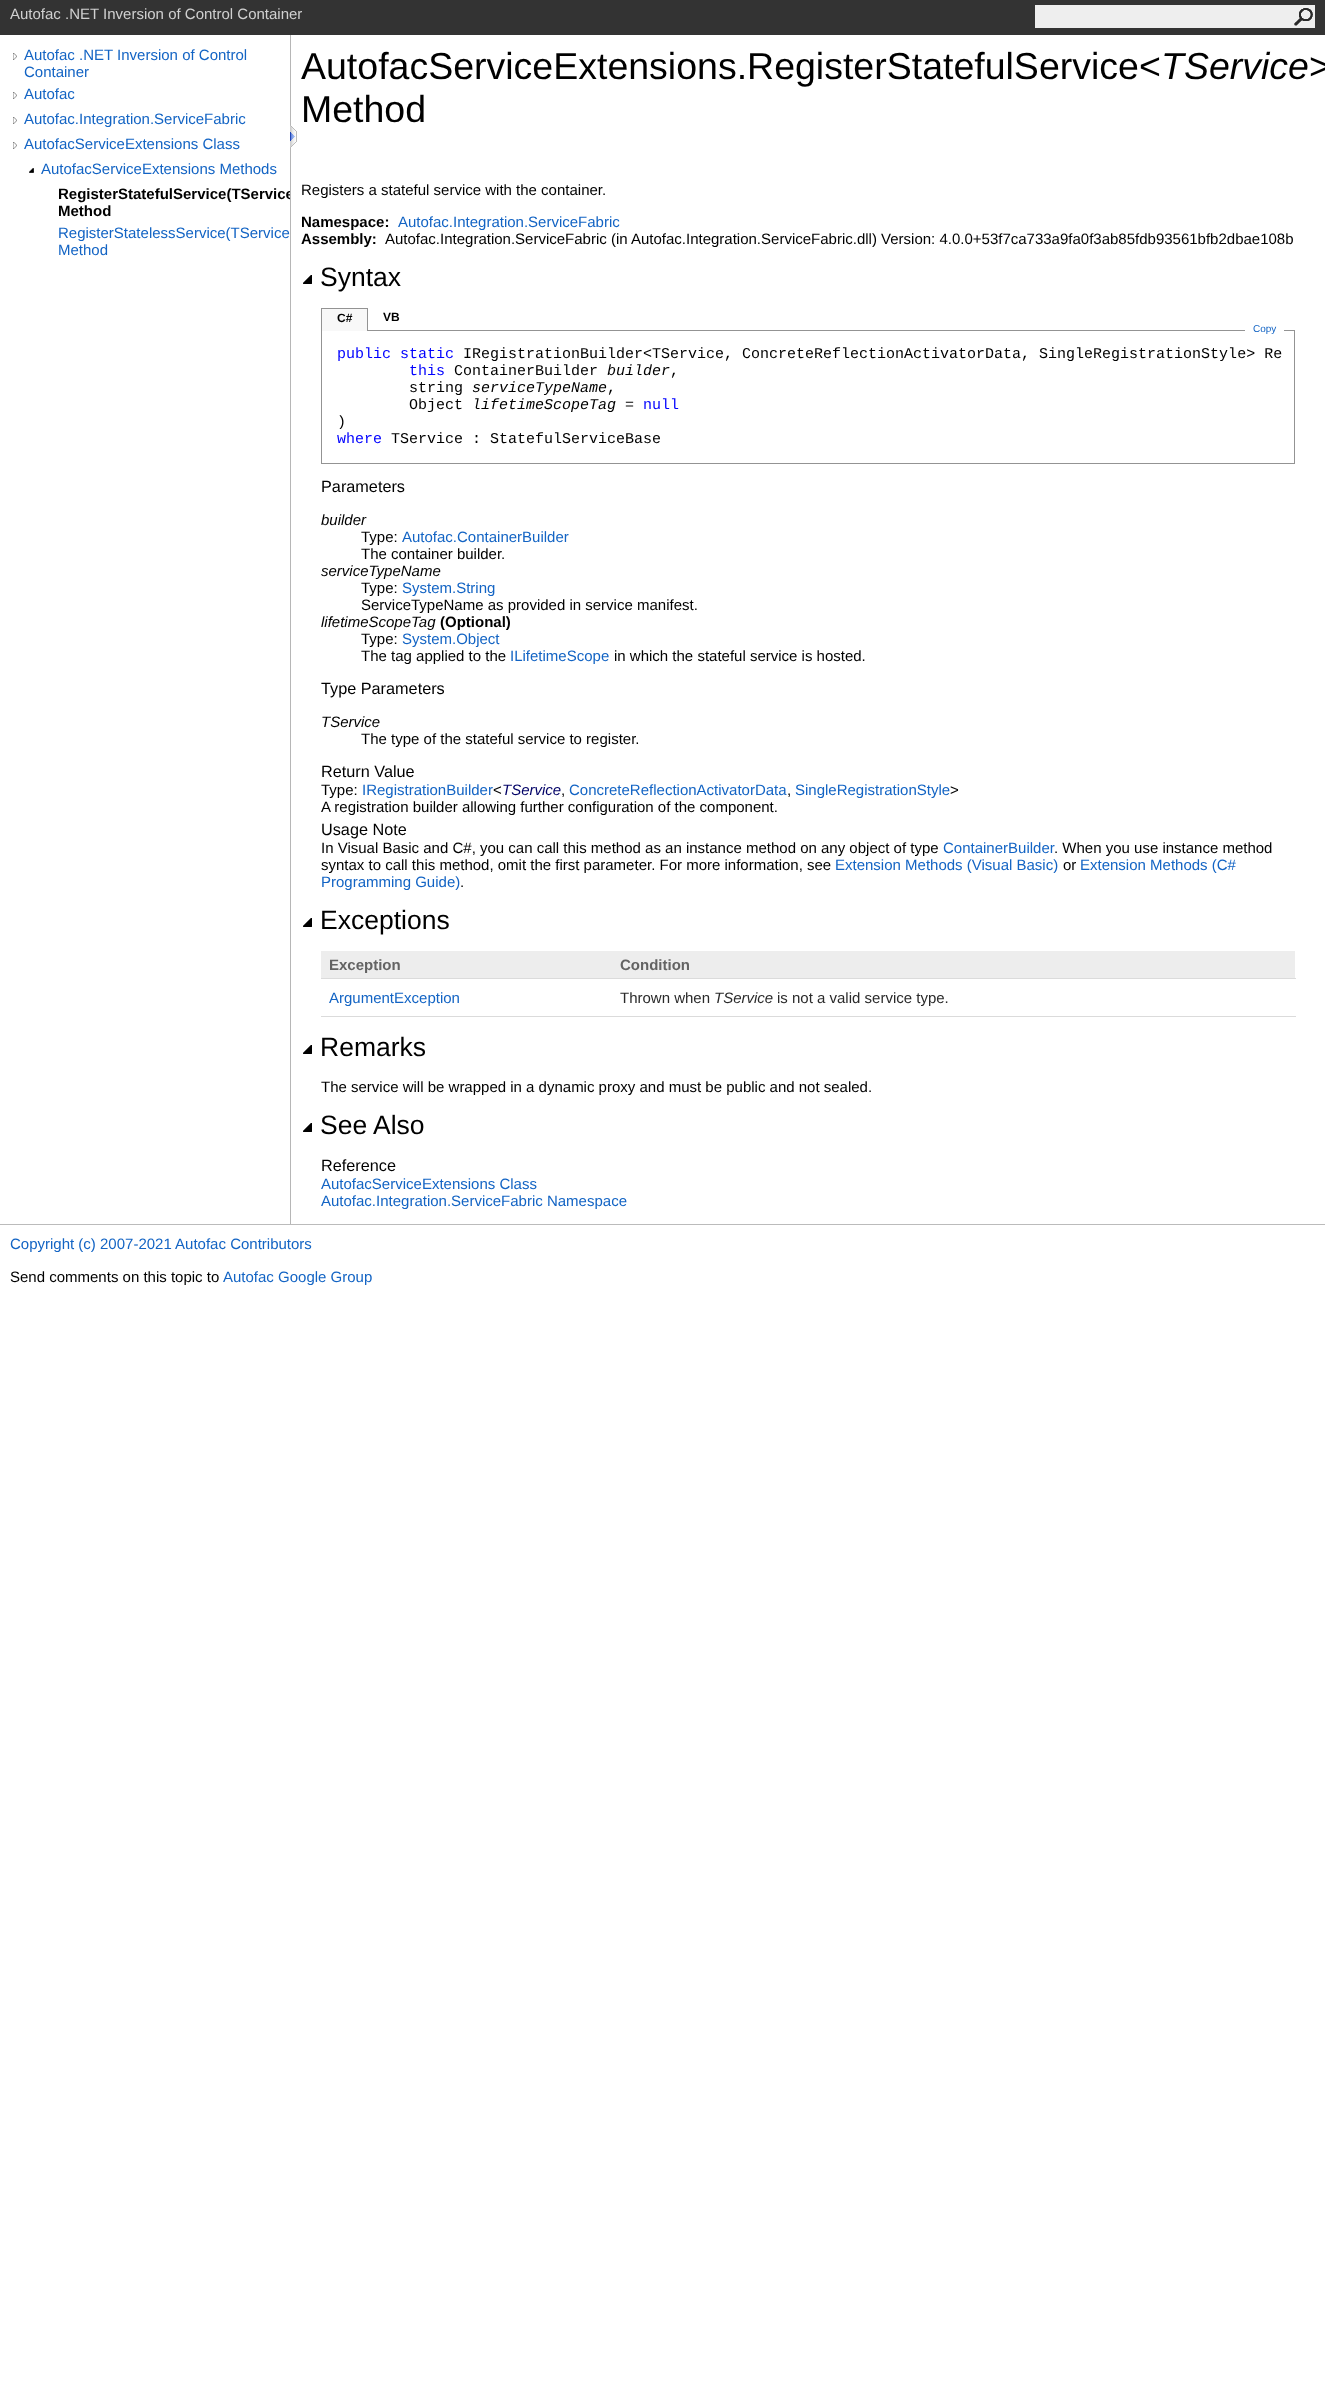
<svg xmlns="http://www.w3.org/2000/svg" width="1325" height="2401">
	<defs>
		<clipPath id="clip1"><rect x="58" y="185" width="232" height="34" /></clipPath>
	</defs>
	<rect width="100%" height="100%" fill="#FFFFFF" />
	<rect x="0" y="0" width="1325" height="35" fill="#333333" />
	<text x="10" y="19" font-family="Liberation Sans" font-size="15" fill="#D0D0D0">Autofac .NET Inversion of Control Container</text>
	<rect x="1035" y="5" width="280" height="23" fill="#EEEEEE" />
	<image x="1294" y="8" width="19" height="18" href="assets/img1.png" />
	<rect x="290" y="35" width="1" height="1189" fill="#B6B6B6" />
	<image x="13" y="53" width="4" height="7" href="assets/img2.png" />
	<g font-family="Liberation Sans" font-size="15" fill="#1364C4">
		<text x="24" y="60">Autofac .NET Inversion of Control</text>
		<text x="24" y="77">Container</text>
	</g>
	<image x="13" y="92" width="4" height="7" href="assets/img2.png" />
	<text x="24" y="99" font-family="Liberation Sans" font-size="15" fill="#1364C4">Autofac</text>
	<image x="13" y="117" width="4" height="7" href="assets/img2.png" />
	<text x="24" y="124" font-family="Liberation Sans" font-size="15" fill="#1364C4">Autofac.Integration.ServiceFabric</text>
	<image x="13" y="142" width="4" height="7" href="assets/img2.png" />
	<text x="24" y="149" font-family="Liberation Sans" font-size="15" fill="#1364C4">AutofacServiceExtensions Class</text>
	<image x="29" y="168" width="5" height="5" href="assets/img3.png" />
	<text x="41" y="174" font-family="Liberation Sans" font-size="15" fill="#1364C4">AutofacServiceExtensions Methods</text>
	<g clip-path="url(#clip1)">
		<text x="58" y="199" font-family="Liberation Sans" font-size="15" font-weight="700" fill="#000000">RegisterStatefulService(TService</text>
	</g>
	<text x="58" y="216" font-family="Liberation Sans" font-size="15" font-weight="700" fill="#000000">Method</text>
	<g font-family="Liberation Sans" font-size="15" fill="#1364C4">
		<text x="58" y="238">RegisterStatelessService(TService</text>
		<text x="58" y="255">Method</text>
	</g>
	<image x="290" y="125" width="7" height="23" href="assets/img4.png" />
	<text x="301" y="79" font-family="Liberation Sans" font-size="37.5" fill="#000000">AutofacServiceExtensions.RegisterStatefulService&lt;</text>
	<text x="1161" y="79" font-family="Liberation Sans" font-size="37.5" font-style="italic" fill="#000000">TService</text>
	<g font-family="Liberation Sans" font-size="37.5" fill="#000000">
		<text x="1309" y="79">&gt;</text>
		<text x="301" y="122">Method</text>
	</g>
	<text x="301" y="195" font-family="Liberation Sans" font-size="15" fill="#000000">Registers a stateful service with the container.</text>
	<text x="301" y="227" font-family="Liberation Sans" font-size="15" font-weight="700" fill="#000000">Namespace:</text>
	<text x="398" y="227" font-family="Liberation Sans" font-size="15" fill="#1364C4">Autofac.Integration.ServiceFabric</text>
	<text x="301" y="244" font-family="Liberation Sans" font-size="15" font-weight="700" fill="#000000">Assembly:</text>
	<text x="385" y="244" font-family="Liberation Sans" font-size="15" fill="#000000">Autofac.Integration.ServiceFabric (in Autofac.Integration.ServiceFabric.dll) Version: 4.0.0+53f7ca733a9fa0f3ab85fdb93561bfb2dbae108b</text>
	<image x="303" y="275" width="9" height="9" href="assets/img5.png" />
	<text x="320" y="286" font-family="Liberation Sans" font-size="26.5" fill="#000000">Syntax</text>
	<rect x="321.5" y="330.5" width="973" height="133" fill="none" stroke="#939393" />
	<rect x="322" y="309" width="45" height="22" fill="#F8F8F8" />
	<rect x="321" y="308" width="47" height="1" fill="#939393" />
	<rect x="367" y="308" width="1" height="23" fill="#939393" />
	<rect x="321" y="308" width="1" height="23" fill="#939393" />
	<g font-family="Liberation Sans" font-size="12" font-weight="700" fill="#000000">
		<text x="337" y="322">C#</text>
		<text x="383" y="321">VB</text>
	</g>
	<rect x="1245" y="330" width="39" height="1" fill="#FFFFFF" />
	<text x="1253" y="332" font-family="Liberation Sans" font-size="10" fill="#1364C4">Copy</text>
	<text x="337" y="358" font-family="Liberation Mono" font-size="15" fill="#0000FF">public static</text>
	<text x="463" y="358" font-family="Liberation Mono" font-size="15" fill="#000000">IRegistrationBuilder&lt;TService, ConcreteReflectionActivatorData, SingleRegistrationStyle&gt; Re</text>
	<text x="409" y="375" font-family="Liberation Mono" font-size="15" fill="#0000FF">this</text>
	<text x="454" y="375" font-family="Liberation Mono" font-size="15" fill="#000000">ContainerBuilder</text>
	<text x="607" y="375" font-family="Liberation Mono" font-size="15" font-style="italic" fill="#000000">builder</text>
	<g font-family="Liberation Mono" font-size="15" fill="#000000">
		<text x="670" y="375">,</text>
		<text x="409" y="392">string</text>
	</g>
	<text x="472" y="392" font-family="Liberation Mono" font-size="15" font-style="italic" fill="#000000">serviceTypeName</text>
	<g font-family="Liberation Mono" font-size="15" fill="#000000">
		<text x="607" y="392">,</text>
		<text x="409" y="409">Object</text>
	</g>
	<text x="472" y="409" font-family="Liberation Mono" font-size="15" font-style="italic" fill="#000000">lifetimeScopeTag</text>
	<text x="625" y="409" font-family="Liberation Mono" font-size="15" fill="#000000">=</text>
	<text x="643" y="409" font-family="Liberation Mono" font-size="15" fill="#0000FF">null</text>
	<text x="337" y="426" font-family="Liberation Mono" font-size="15" fill="#000000">)</text>
	<text x="337" y="443" font-family="Liberation Mono" font-size="15" fill="#0000FF">where</text>
	<text x="391" y="443" font-family="Liberation Mono" font-size="15" fill="#000000">TService : StatefulServiceBase</text>
	<text x="321" y="492" font-family="Liberation Sans" font-size="16.25" fill="#000000">Parameters</text>
	<text x="321" y="525" font-family="Liberation Sans" font-size="15" font-style="italic" fill="#000000">builder</text>
	<text x="361" y="542" font-family="Liberation Sans" font-size="15" fill="#000000">Type:</text>
	<text x="402" y="542" font-family="Liberation Sans" font-size="15" fill="#1364C4">Autofac.ContainerBuilder</text>
	<text x="361" y="559" font-family="Liberation Sans" font-size="15" fill="#000000">The container builder.</text>
	<text x="321" y="576" font-family="Liberation Sans" font-size="15" font-style="italic" fill="#000000">serviceTypeName</text>
	<text x="361" y="593" font-family="Liberation Sans" font-size="15" fill="#000000">Type:</text>
	<text x="402" y="593" font-family="Liberation Sans" font-size="15" fill="#1364C4">System.String</text>
	<text x="361" y="610" font-family="Liberation Sans" font-size="15" fill="#000000">ServiceTypeName as provided in service manifest.</text>
	<text x="321" y="627" font-family="Liberation Sans" font-size="15" font-style="italic" fill="#000000">lifetimeScopeTag</text>
	<text x="440" y="627" font-family="Liberation Sans" font-size="15" font-weight="700" fill="#000000">(Optional)</text>
	<text x="361" y="644" font-family="Liberation Sans" font-size="15" fill="#000000">Type:</text>
	<text x="402" y="644" font-family="Liberation Sans" font-size="15" fill="#1364C4">System.Object</text>
	<text x="361" y="661" font-family="Liberation Sans" font-size="15" fill="#000000">The tag applied to the</text>
	<text x="510" y="661" font-family="Liberation Sans" font-size="15" fill="#1364C4">ILifetimeScope</text>
	<text x="614" y="661" font-family="Liberation Sans" font-size="15" fill="#000000">in which the stateful service is hosted.</text>
	<text x="321" y="694" font-family="Liberation Sans" font-size="16.25" fill="#000000">Type Parameters</text>
	<text x="321" y="727" font-family="Liberation Sans" font-size="15" font-style="italic" fill="#000000">TService</text>
	<text x="361" y="744" font-family="Liberation Sans" font-size="15" fill="#000000">The type of the stateful service to register.</text>
	<text x="321" y="777" font-family="Liberation Sans" font-size="16.25" fill="#000000">Return Value</text>
	<text x="321" y="795" font-family="Liberation Sans" font-size="15" fill="#000000">Type:</text>
	<text x="362" y="795" font-family="Liberation Sans" font-size="15" fill="#1364C4">IRegistrationBuilder</text>
	<text x="493" y="795" font-family="Liberation Sans" font-size="15" fill="#000000">&lt;</text>
	<text x="502" y="795" font-family="Liberation Sans" font-size="15" font-style="italic" fill="#000066">TService</text>
	<g font-family="Liberation Sans" font-size="15" fill="#1364C4">
		<text x="569" y="795">ConcreteReflectionActivatorData</text>
		<text x="795" y="795">SingleRegistrationStyle</text>
	</g>
	<g font-family="Liberation Sans" font-size="15" fill="#000000">
		<text x="950" y="795">&gt;</text>
		<text x="561" y="795">,</text>
		<text x="787" y="795">,</text>
		<text x="321" y="812">A registration builder allowing further configuration of the component.</text>
	</g>
	<text x="321" y="835" font-family="Liberation Sans" font-size="16.25" fill="#000000">Usage Note</text>
	<text x="321" y="853" font-family="Liberation Sans" font-size="15" fill="#000000">In Visual Basic and C#, you can call this method as an instance method on any object of type</text>
	<text x="943" y="853" font-family="Liberation Sans" font-size="15" fill="#1364C4">ContainerBuilder</text>
	<g font-family="Liberation Sans" font-size="15" fill="#000000">
		<text x="1054" y="853">. When you use instance method</text>
		<text x="321" y="870">syntax to call this method, omit the first parameter. For more information, see</text>
	</g>
	<text x="835" y="870" font-family="Liberation Sans" font-size="15" fill="#1364C4">Extension Methods (Visual Basic)</text>
	<text x="1063" y="870" font-family="Liberation Sans" font-size="15" fill="#000000">or</text>
	<g font-family="Liberation Sans" font-size="15" fill="#1364C4">
		<text x="1080" y="870">Extension Methods (C#</text>
		<text x="321" y="887">Programming Guide)</text>
	</g>
	<text x="460" y="887" font-family="Liberation Sans" font-size="15" fill="#000000">.</text>
	<image x="303" y="918" width="9" height="9" href="assets/img5.png" />
	<text x="320" y="929" font-family="Liberation Sans" font-size="26.5" fill="#000000">Exceptions</text>
	<rect x="321" y="951" width="974" height="27" fill="#EDEDED" />
	<text x="329" y="970" font-family="Liberation Sans" font-size="15" font-weight="700" fill="#636363">Exception</text>
	<rect x="321" y="978" width="975" height="1" fill="#DBDBDB" />
	<text x="620" y="970" font-family="Liberation Sans" font-size="15" font-weight="700" fill="#636363">Condition</text>
	<text x="329" y="1003" font-family="Liberation Sans" font-size="15" fill="#1364C4">ArgumentException</text>
	<rect x="321" y="1016" width="975" height="1" fill="#DBDBDB" />
	<text x="620" y="1003" font-family="Liberation Sans" font-size="15" fill="#2A2A2A">Thrown when</text>
	<text x="714" y="1003" font-family="Liberation Sans" font-size="15" font-style="italic" fill="#2A2A2A">TService</text>
	<text x="777" y="1003" font-family="Liberation Sans" font-size="15" fill="#2A2A2A">is not a valid service type.</text>
	<image x="303" y="1045" width="9" height="9" href="assets/img5.png" />
	<text x="320" y="1056" font-family="Liberation Sans" font-size="26.5" fill="#000000">Remarks</text>
	<text x="321" y="1092" font-family="Liberation Sans" font-size="15" fill="#000000">The service will be wrapped in a dynamic proxy and must be public and not sealed.</text>
	<image x="303" y="1123" width="9" height="9" href="assets/img5.png" />
	<text x="320" y="1134" font-family="Liberation Sans" font-size="26.5" fill="#000000">See Also</text>
	<text x="321" y="1171" font-family="Liberation Sans" font-size="16.25" fill="#000000">Reference</text>
	<g font-family="Liberation Sans" font-size="15" fill="#1364C4">
		<text x="321" y="1189">AutofacServiceExtensions Class</text>
		<text x="321" y="1206">Autofac.Integration.ServiceFabric Namespace</text>
	</g>
	<rect x="0" y="1224" width="1325" height="1" fill="#BBBBBB" />
	<text x="10" y="1249" font-family="Liberation Sans" font-size="15" fill="#1364C4">Copyright (c) 2007-2021 Autofac Contributors</text>
	<text x="10" y="1282" font-family="Liberation Sans" font-size="15" fill="#000000">Send comments on this topic to</text>
	<text x="223" y="1282" font-family="Liberation Sans" font-size="15" fill="#1364C4">Autofac Google Group</text>
</svg>
